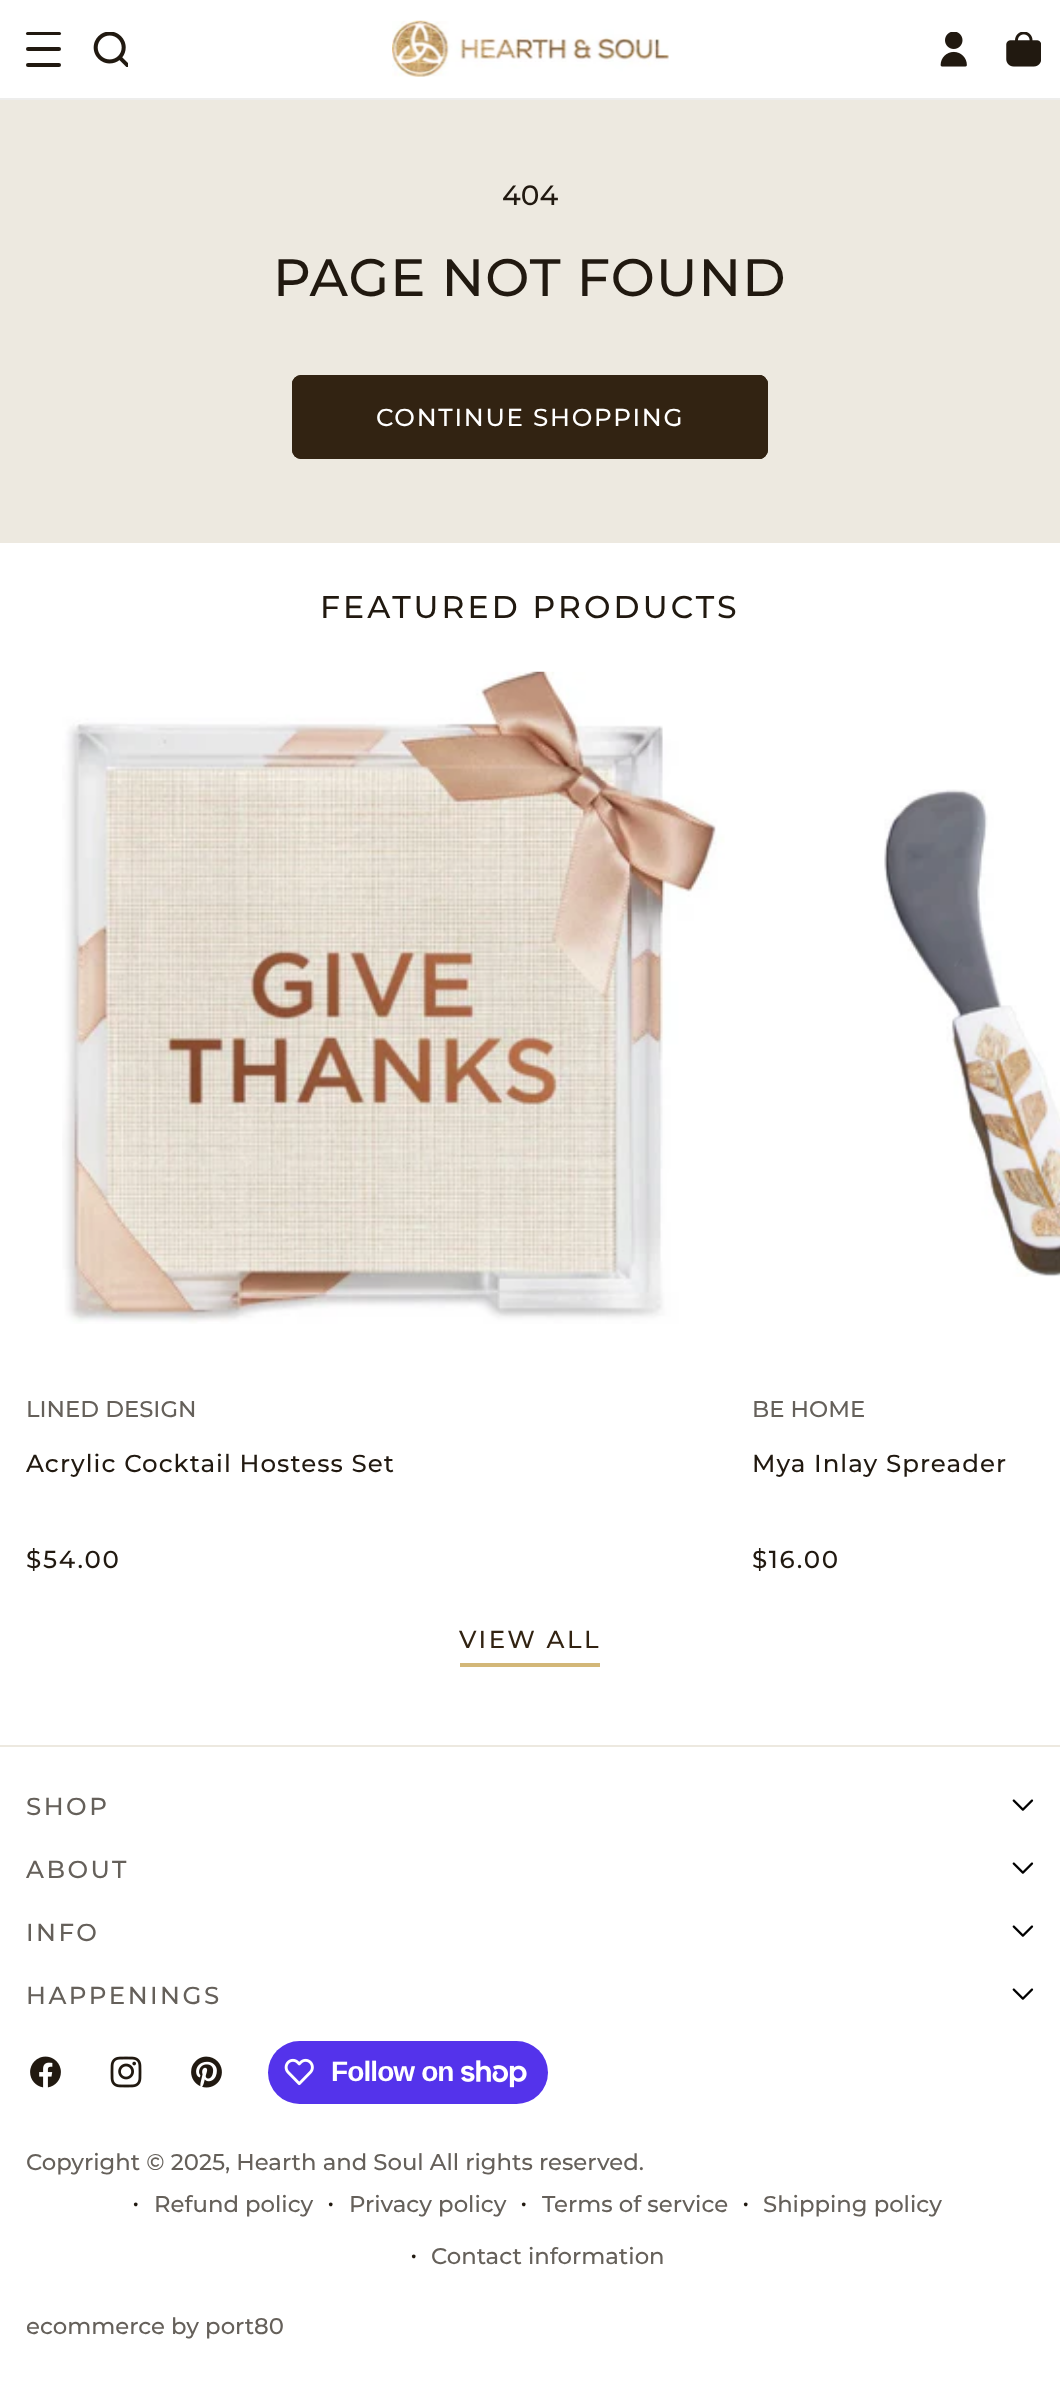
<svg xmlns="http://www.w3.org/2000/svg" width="1060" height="2383">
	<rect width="100%" height="100%" fill="#FFFFFF" />
	<rect x="0" y="98" width="1060" height="2" fill="#EDEDEC" />
	<rect x="26" y="32" width="35" height="3" rx="1.5" fill="#211910" />
	<rect x="26" y="47" width="35" height="4" rx="2" fill="#211910" />
	<rect x="26" y="63" width="35" height="4" rx="2" fill="#211910" />
	<image x="93" y="32" width="35" height="35" href="assets/img1.png" />
	<image x="392" y="20" width="277" height="57" href="assets/img2.png" />
	<image x="940" y="32" width="27" height="35" href="assets/img3.png" />
	<image x="1006" y="32" width="35" height="35" href="assets/img4.png" />
	<rect x="0" y="100" width="1060" height="443" fill="#EDE9E0" />
	<text x="502" y="205" font-family="Montserrat" font-size="28" font-weight="500" fill="#211910">404</text>
	<text x="273" y="296" font-family="Montserrat" font-size="52.5" font-weight="500" letter-spacing="1.05" fill="#211910">PAGE NOT FOUND</text>
	<rect x="292" y="375" width="476" height="84" rx="9" fill="#322312" />
	<rect x="293" y="376" width="474" height="82" rx="8" fill="none" stroke="#322312" stroke-width="2" />
	<text x="376" y="426" font-family="Montserrat" font-size="24.5" font-weight="500" letter-spacing="1.75" fill="#FFFFFF">CONTINUE SHOPPING</text>
	<text x="320" y="618" font-family="Montserrat" font-size="31.5" font-weight="500" letter-spacing="3.1" fill="#211910">FEATURED PRODUCTS</text>
	<image x="62" y="671" width="663" height="653" href="assets/img5.png" />
	<text x="26" y="1417" font-family="Montserrat" font-size="22.75" font-weight="500" fill="#65605A">LINED DESIGN</text>
	<text x="26" y="1472" font-family="Montserrat" font-size="24.5" font-weight="500" letter-spacing="1.05" fill="#211910">Acrylic Cocktail Hostess Set</text>
	<text x="26" y="1568" font-family="Montserrat" font-size="24.5" font-weight="500" letter-spacing="1.75" fill="#211910">$54.00</text>
	<image x="884" y="789" width="176" height="488" href="assets/img6.png" />
	<text x="752" y="1417" font-family="Montserrat" font-size="22.75" font-weight="500" fill="#65605A">BE HOME</text>
	<text x="752" y="1472" font-family="Montserrat" font-size="24.5" font-weight="500" letter-spacing="1.05" fill="#211910">Mya Inlay Spreader</text>
	<text x="752" y="1568" font-family="Montserrat" font-size="24.5" font-weight="500" letter-spacing="1.75" fill="#211910">$16.00</text>
	<text x="459" y="1648" font-family="Montserrat" font-size="24.5" font-weight="500" letter-spacing="2.5" fill="#322312">VIEW ALL</text>
	<rect x="460" y="1663" width="140" height="4" fill="#D3B778" />
	<rect x="0" y="1745" width="1060" height="2" fill="#EDE9E0" />
	<text x="26" y="1815" font-family="Montserrat" font-size="24.5" font-weight="500" letter-spacing="2.5" fill="#65605A">SHOP</text>
	<image x="1012" y="1799" width="22" height="12" href="assets/img7.png" />
	<text x="26" y="1878" font-family="Montserrat" font-size="24.5" font-weight="500" letter-spacing="2.5" fill="#65605A">ABOUT</text>
	<image x="1012" y="1862" width="22" height="12" href="assets/img7.png" />
	<text x="26" y="1941" font-family="Montserrat" font-size="24.5" font-weight="500" letter-spacing="2.5" fill="#65605A">INFO</text>
	<image x="1012" y="1925" width="22" height="12" href="assets/img7.png" />
	<text x="26" y="2004" font-family="Montserrat" font-size="24.5" font-weight="500" letter-spacing="2.5" fill="#65605A">HAPPENINGS</text>
	<image x="1012" y="1988" width="22" height="12" href="assets/img7.png" />
	<image x="30" y="2056" width="31" height="32" href="assets/img8.png" />
	<image x="110" y="2056" width="32" height="32" href="assets/img9.png" />
	<image x="191" y="2056" width="31" height="32" href="assets/img10.png" />
	<rect x="268" y="2041" width="280" height="63" rx="31.5" fill="#5433EB" />
	<image x="284" y="2058" width="30" height="28" href="assets/img11.png" />
	<text x="331" y="2081" font-family="Liberation Sans" font-size="28" font-weight="700" letter-spacing="-0.9" fill="#FFFFFF">Follow on</text>
	<image x="461" y="2060" width="66" height="28" href="assets/img12.png" />
	<text x="26" y="2170" font-family="Montserrat" font-size="22.75" font-weight="500" fill="#65605A">Copyright © 2025, Hearth and Soul All rights reserved.</text>
	<text x="132" y="2212" font-family="Montserrat" font-size="28" font-weight="500" fill="#211910">·</text>
	<text x="154" y="2212" font-family="Montserrat" font-size="22.75" font-weight="500" fill="#65605A">Refund policy</text>
	<text x="327" y="2212" font-family="Montserrat" font-size="28" font-weight="500" fill="#211910">·</text>
	<text x="349" y="2212" font-family="Montserrat" font-size="22.75" font-weight="500" fill="#65605A">Privacy policy</text>
	<text x="520" y="2212" font-family="Montserrat" font-size="28" font-weight="500" fill="#211910">·</text>
	<text x="542" y="2212" font-family="Montserrat" font-size="22.75" font-weight="500" fill="#65605A">Terms of service</text>
	<text x="742" y="2212" font-family="Montserrat" font-size="28" font-weight="500" fill="#211910">·</text>
	<text x="763" y="2212" font-family="Montserrat" font-size="22.75" font-weight="500" fill="#65605A">Shipping policy</text>
	<text x="410" y="2264" font-family="Montserrat" font-size="28" font-weight="500" fill="#211910">·</text>
	<g font-family="Montserrat" font-size="22.75" font-weight="500" fill="#65605A">
		<text x="431" y="2264">Contact information</text>
		<text x="26" y="2334">ecommerce by port80</text>
	</g>
</svg>
